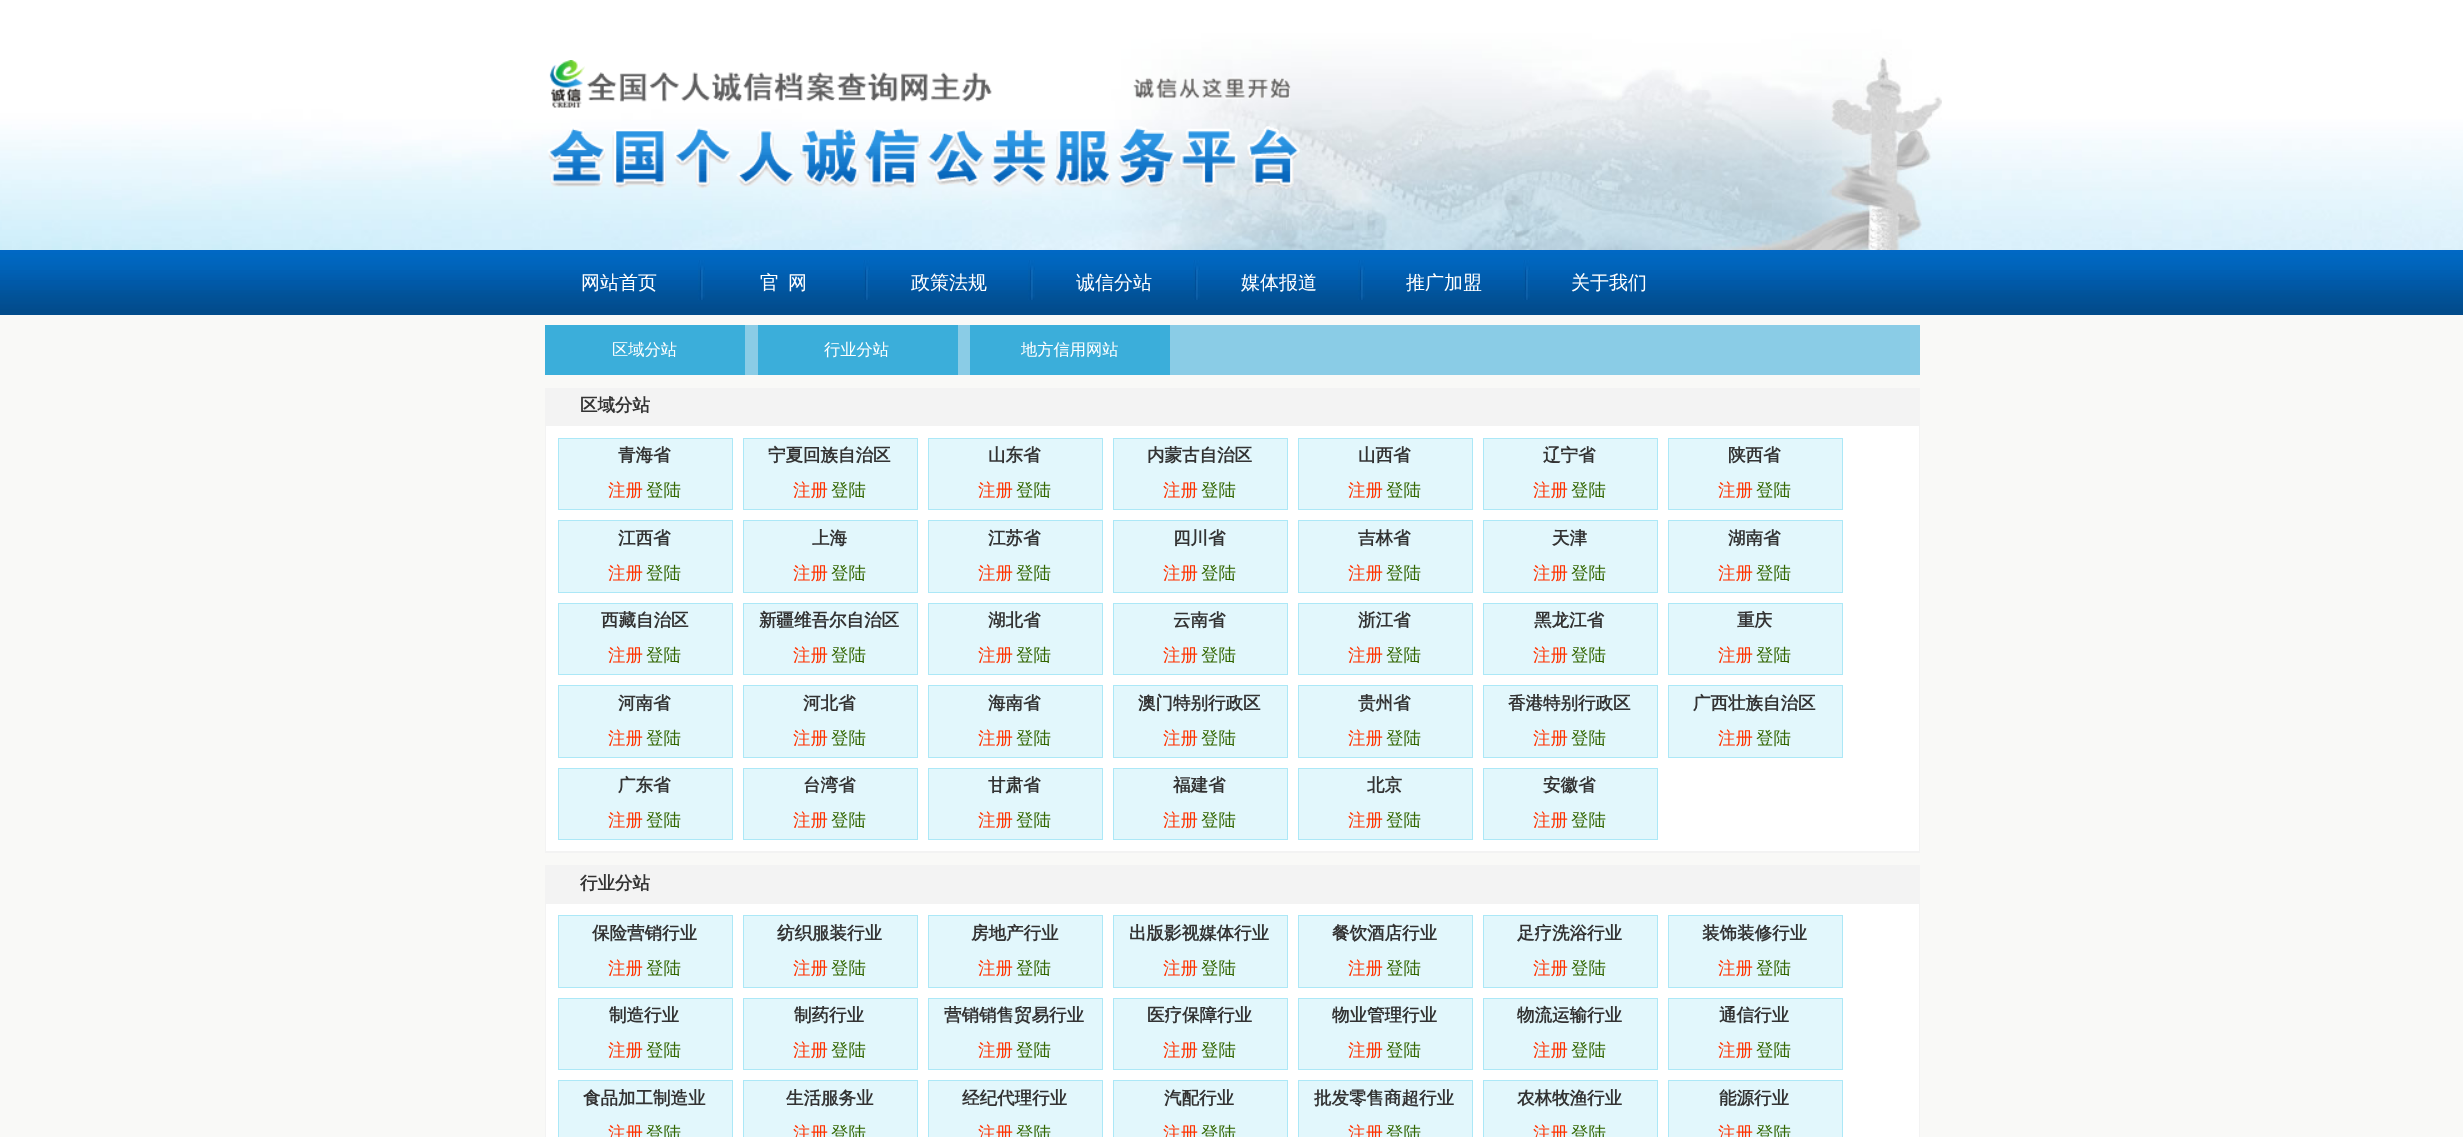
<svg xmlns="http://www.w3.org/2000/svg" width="2463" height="1137">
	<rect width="100%" height="100%" fill="#F9F9F7" />
	<image x="0" y="0" width="2463" height="250" href="assets/img1.png" />
	<image x="547" y="60" width="753" height="129" href="assets/img2.png" />
	<image x="0" y="250" width="2463" height="65" href="assets/img3.png" />
	<text x="581" y="289" font-family="WenQuanYi Zen Hei" font-size="19" font-weight="500" fill="#FFFFFF">网站首页</text>
	<image x="698" y="260" width="7" height="40" href="assets/img4.png" />
	<g font-family="WenQuanYi Zen Hei" font-size="19" font-weight="500" fill="#FFFFFF">
		<text x="760" y="289">官</text>
		<text x="788" y="289">网</text>
	</g>
	<image x="863" y="260" width="7" height="40" href="assets/img4.png" />
	<text x="911" y="289" font-family="WenQuanYi Zen Hei" font-size="19" font-weight="500" fill="#FFFFFF">政策法规</text>
	<image x="1028" y="260" width="7" height="40" href="assets/img4.png" />
	<text x="1076" y="289" font-family="WenQuanYi Zen Hei" font-size="19" font-weight="500" fill="#FFFFFF">诚信分站</text>
	<image x="1193" y="260" width="7" height="40" href="assets/img4.png" />
	<text x="1241" y="289" font-family="WenQuanYi Zen Hei" font-size="19" font-weight="500" fill="#FFFFFF">媒体报道</text>
	<image x="1358" y="260" width="7" height="40" href="assets/img4.png" />
	<text x="1406" y="289" font-family="WenQuanYi Zen Hei" font-size="19" font-weight="500" fill="#FFFFFF">推广加盟</text>
	<image x="1523" y="260" width="7" height="40" href="assets/img4.png" />
	<text x="1571" y="289" font-family="WenQuanYi Zen Hei" font-size="19" font-weight="500" fill="#FFFFFF">关于我们</text>
	<rect x="745" y="325" width="1175" height="50" fill="#8ACCE6" />
	<rect x="545" y="325" width="200" height="50" fill="#3BAEDA" />
	<text x="612" y="355" font-family="WenQuanYi Zen Hei" font-size="16.25" font-weight="500" fill="#FFFFFF">区域分站</text>
	<rect x="758" y="325" width="200" height="50" fill="#3BAEDA" />
	<text x="824" y="355" font-family="WenQuanYi Zen Hei" font-size="16.25" font-weight="500" fill="#FFFFFF">行业分站</text>
	<rect x="970" y="325" width="200" height="50" fill="#3BAEDA" />
	<text x="1021" y="355" font-family="WenQuanYi Zen Hei" font-size="16.25" font-weight="500" fill="#FFFFFF">地方信用网站</text>
	<rect x="545" y="388" width="1375" height="465" fill="#F3F3F3" />
	<text x="580" y="411" font-family="WenQuanYi Zen Hei" font-size="17.5" font-weight="700" fill="#333333">区域分站</text>
	<rect x="546" y="426" width="1373" height="425" fill="#FFFFFF" />
	<rect x="558.5" y="438.5" width="174" height="71" fill="#E2F7FC" stroke="#ACE8F7" />
	<text x="618" y="461" font-family="WenQuanYi Zen Hei" font-size="17.5" font-weight="700" fill="#333333">青海省</text>
	<text x="608" y="496" font-family="WenQuanYi Zen Hei" font-size="17.5" font-weight="500" fill="#FF3300">注册</text>
	<text x="646" y="496" font-family="WenQuanYi Zen Hei" font-size="17.5" font-weight="500" fill="#336600">登陆</text>
	<rect x="743.5" y="438.5" width="174" height="71" fill="#E2F7FC" stroke="#ACE8F7" />
	<text x="768" y="461" font-family="WenQuanYi Zen Hei" font-size="17.5" font-weight="700" fill="#333333">宁夏回族自治区</text>
	<text x="793" y="496" font-family="WenQuanYi Zen Hei" font-size="17.5" font-weight="500" fill="#FF3300">注册</text>
	<text x="831" y="496" font-family="WenQuanYi Zen Hei" font-size="17.5" font-weight="500" fill="#336600">登陆</text>
	<rect x="928.5" y="438.5" width="174" height="71" fill="#E2F7FC" stroke="#ACE8F7" />
	<text x="988" y="461" font-family="WenQuanYi Zen Hei" font-size="17.5" font-weight="700" fill="#333333">山东省</text>
	<text x="978" y="496" font-family="WenQuanYi Zen Hei" font-size="17.5" font-weight="500" fill="#FF3300">注册</text>
	<text x="1016" y="496" font-family="WenQuanYi Zen Hei" font-size="17.5" font-weight="500" fill="#336600">登陆</text>
	<rect x="1113.5" y="438.5" width="174" height="71" fill="#E2F7FC" stroke="#ACE8F7" />
	<text x="1147" y="461" font-family="WenQuanYi Zen Hei" font-size="17.5" font-weight="700" fill="#333333">内蒙古自治区</text>
	<text x="1163" y="496" font-family="WenQuanYi Zen Hei" font-size="17.5" font-weight="500" fill="#FF3300">注册</text>
	<text x="1201" y="496" font-family="WenQuanYi Zen Hei" font-size="17.5" font-weight="500" fill="#336600">登陆</text>
	<rect x="1298.5" y="438.5" width="174" height="71" fill="#E2F7FC" stroke="#ACE8F7" />
	<text x="1358" y="461" font-family="WenQuanYi Zen Hei" font-size="17.5" font-weight="700" fill="#333333">山西省</text>
	<text x="1348" y="496" font-family="WenQuanYi Zen Hei" font-size="17.5" font-weight="500" fill="#FF3300">注册</text>
	<text x="1386" y="496" font-family="WenQuanYi Zen Hei" font-size="17.5" font-weight="500" fill="#336600">登陆</text>
	<rect x="1483.5" y="438.5" width="174" height="71" fill="#E2F7FC" stroke="#ACE8F7" />
	<text x="1543" y="461" font-family="WenQuanYi Zen Hei" font-size="17.5" font-weight="700" fill="#333333">辽宁省</text>
	<text x="1533" y="496" font-family="WenQuanYi Zen Hei" font-size="17.5" font-weight="500" fill="#FF3300">注册</text>
	<text x="1571" y="496" font-family="WenQuanYi Zen Hei" font-size="17.5" font-weight="500" fill="#336600">登陆</text>
	<rect x="1668.5" y="438.5" width="174" height="71" fill="#E2F7FC" stroke="#ACE8F7" />
	<text x="1728" y="461" font-family="WenQuanYi Zen Hei" font-size="17.5" font-weight="700" fill="#333333">陕西省</text>
	<text x="1718" y="496" font-family="WenQuanYi Zen Hei" font-size="17.5" font-weight="500" fill="#FF3300">注册</text>
	<text x="1756" y="496" font-family="WenQuanYi Zen Hei" font-size="17.5" font-weight="500" fill="#336600">登陆</text>
	<rect x="558.5" y="520.5" width="174" height="72" fill="#E2F7FC" stroke="#ACE8F7" />
	<text x="618" y="544" font-family="WenQuanYi Zen Hei" font-size="17.5" font-weight="700" fill="#333333">江西省</text>
	<text x="608" y="579" font-family="WenQuanYi Zen Hei" font-size="17.5" font-weight="500" fill="#FF3300">注册</text>
	<text x="646" y="579" font-family="WenQuanYi Zen Hei" font-size="17.5" font-weight="500" fill="#336600">登陆</text>
	<rect x="743.5" y="520.5" width="174" height="72" fill="#E2F7FC" stroke="#ACE8F7" />
	<text x="812" y="544" font-family="WenQuanYi Zen Hei" font-size="17.5" font-weight="700" fill="#333333">上海</text>
	<text x="793" y="579" font-family="WenQuanYi Zen Hei" font-size="17.5" font-weight="500" fill="#FF3300">注册</text>
	<text x="831" y="579" font-family="WenQuanYi Zen Hei" font-size="17.5" font-weight="500" fill="#336600">登陆</text>
	<rect x="928.5" y="520.5" width="174" height="72" fill="#E2F7FC" stroke="#ACE8F7" />
	<text x="988" y="544" font-family="WenQuanYi Zen Hei" font-size="17.5" font-weight="700" fill="#333333">江苏省</text>
	<text x="978" y="579" font-family="WenQuanYi Zen Hei" font-size="17.5" font-weight="500" fill="#FF3300">注册</text>
	<text x="1016" y="579" font-family="WenQuanYi Zen Hei" font-size="17.5" font-weight="500" fill="#336600">登陆</text>
	<rect x="1113.5" y="520.5" width="174" height="72" fill="#E2F7FC" stroke="#ACE8F7" />
	<text x="1173" y="544" font-family="WenQuanYi Zen Hei" font-size="17.5" font-weight="700" fill="#333333">四川省</text>
	<text x="1163" y="579" font-family="WenQuanYi Zen Hei" font-size="17.5" font-weight="500" fill="#FF3300">注册</text>
	<text x="1201" y="579" font-family="WenQuanYi Zen Hei" font-size="17.5" font-weight="500" fill="#336600">登陆</text>
	<rect x="1298.5" y="520.5" width="174" height="72" fill="#E2F7FC" stroke="#ACE8F7" />
	<text x="1358" y="544" font-family="WenQuanYi Zen Hei" font-size="17.5" font-weight="700" fill="#333333">吉林省</text>
	<text x="1348" y="579" font-family="WenQuanYi Zen Hei" font-size="17.5" font-weight="500" fill="#FF3300">注册</text>
	<text x="1386" y="579" font-family="WenQuanYi Zen Hei" font-size="17.5" font-weight="500" fill="#336600">登陆</text>
	<rect x="1483.5" y="520.5" width="174" height="72" fill="#E2F7FC" stroke="#ACE8F7" />
	<text x="1552" y="544" font-family="WenQuanYi Zen Hei" font-size="17.5" font-weight="700" fill="#333333">天津</text>
	<text x="1533" y="579" font-family="WenQuanYi Zen Hei" font-size="17.5" font-weight="500" fill="#FF3300">注册</text>
	<text x="1571" y="579" font-family="WenQuanYi Zen Hei" font-size="17.5" font-weight="500" fill="#336600">登陆</text>
	<rect x="1668.5" y="520.5" width="174" height="72" fill="#E2F7FC" stroke="#ACE8F7" />
	<text x="1728" y="544" font-family="WenQuanYi Zen Hei" font-size="17.5" font-weight="700" fill="#333333">湖南省</text>
	<text x="1718" y="579" font-family="WenQuanYi Zen Hei" font-size="17.5" font-weight="500" fill="#FF3300">注册</text>
	<text x="1756" y="579" font-family="WenQuanYi Zen Hei" font-size="17.5" font-weight="500" fill="#336600">登陆</text>
	<rect x="558.5" y="603.5" width="174" height="71" fill="#E2F7FC" stroke="#ACE8F7" />
	<text x="601" y="626" font-family="WenQuanYi Zen Hei" font-size="17.5" font-weight="700" fill="#333333">西藏自治区</text>
	<text x="608" y="661" font-family="WenQuanYi Zen Hei" font-size="17.5" font-weight="500" fill="#FF3300">注册</text>
	<text x="646" y="661" font-family="WenQuanYi Zen Hei" font-size="17.5" font-weight="500" fill="#336600">登陆</text>
	<rect x="743.5" y="603.5" width="174" height="71" fill="#E2F7FC" stroke="#ACE8F7" />
	<text x="759" y="626" font-family="WenQuanYi Zen Hei" font-size="17.5" font-weight="700" fill="#333333">新疆维吾尔自治区</text>
	<text x="793" y="661" font-family="WenQuanYi Zen Hei" font-size="17.5" font-weight="500" fill="#FF3300">注册</text>
	<text x="831" y="661" font-family="WenQuanYi Zen Hei" font-size="17.5" font-weight="500" fill="#336600">登陆</text>
	<rect x="928.5" y="603.5" width="174" height="71" fill="#E2F7FC" stroke="#ACE8F7" />
	<text x="988" y="626" font-family="WenQuanYi Zen Hei" font-size="17.5" font-weight="700" fill="#333333">湖北省</text>
	<text x="978" y="661" font-family="WenQuanYi Zen Hei" font-size="17.5" font-weight="500" fill="#FF3300">注册</text>
	<text x="1016" y="661" font-family="WenQuanYi Zen Hei" font-size="17.5" font-weight="500" fill="#336600">登陆</text>
	<rect x="1113.5" y="603.5" width="174" height="71" fill="#E2F7FC" stroke="#ACE8F7" />
	<text x="1173" y="626" font-family="WenQuanYi Zen Hei" font-size="17.5" font-weight="700" fill="#333333">云南省</text>
	<text x="1163" y="661" font-family="WenQuanYi Zen Hei" font-size="17.5" font-weight="500" fill="#FF3300">注册</text>
	<text x="1201" y="661" font-family="WenQuanYi Zen Hei" font-size="17.5" font-weight="500" fill="#336600">登陆</text>
	<rect x="1298.5" y="603.5" width="174" height="71" fill="#E2F7FC" stroke="#ACE8F7" />
	<text x="1358" y="626" font-family="WenQuanYi Zen Hei" font-size="17.5" font-weight="700" fill="#333333">浙江省</text>
	<text x="1348" y="661" font-family="WenQuanYi Zen Hei" font-size="17.5" font-weight="500" fill="#FF3300">注册</text>
	<text x="1386" y="661" font-family="WenQuanYi Zen Hei" font-size="17.5" font-weight="500" fill="#336600">登陆</text>
	<rect x="1483.5" y="603.5" width="174" height="71" fill="#E2F7FC" stroke="#ACE8F7" />
	<text x="1534" y="626" font-family="WenQuanYi Zen Hei" font-size="17.5" font-weight="700" fill="#333333">黑龙江省</text>
	<text x="1533" y="661" font-family="WenQuanYi Zen Hei" font-size="17.5" font-weight="500" fill="#FF3300">注册</text>
	<text x="1571" y="661" font-family="WenQuanYi Zen Hei" font-size="17.5" font-weight="500" fill="#336600">登陆</text>
	<rect x="1668.5" y="603.5" width="174" height="71" fill="#E2F7FC" stroke="#ACE8F7" />
	<text x="1737" y="626" font-family="WenQuanYi Zen Hei" font-size="17.5" font-weight="700" fill="#333333">重庆</text>
	<text x="1718" y="661" font-family="WenQuanYi Zen Hei" font-size="17.5" font-weight="500" fill="#FF3300">注册</text>
	<text x="1756" y="661" font-family="WenQuanYi Zen Hei" font-size="17.5" font-weight="500" fill="#336600">登陆</text>
	<rect x="558.5" y="685.5" width="174" height="72" fill="#E2F7FC" stroke="#ACE8F7" />
	<text x="618" y="709" font-family="WenQuanYi Zen Hei" font-size="17.5" font-weight="700" fill="#333333">河南省</text>
	<text x="608" y="744" font-family="WenQuanYi Zen Hei" font-size="17.5" font-weight="500" fill="#FF3300">注册</text>
	<text x="646" y="744" font-family="WenQuanYi Zen Hei" font-size="17.5" font-weight="500" fill="#336600">登陆</text>
	<rect x="743.5" y="685.5" width="174" height="72" fill="#E2F7FC" stroke="#ACE8F7" />
	<text x="803" y="709" font-family="WenQuanYi Zen Hei" font-size="17.5" font-weight="700" fill="#333333">河北省</text>
	<text x="793" y="744" font-family="WenQuanYi Zen Hei" font-size="17.5" font-weight="500" fill="#FF3300">注册</text>
	<text x="831" y="744" font-family="WenQuanYi Zen Hei" font-size="17.5" font-weight="500" fill="#336600">登陆</text>
	<rect x="928.5" y="685.5" width="174" height="72" fill="#E2F7FC" stroke="#ACE8F7" />
	<text x="988" y="709" font-family="WenQuanYi Zen Hei" font-size="17.5" font-weight="700" fill="#333333">海南省</text>
	<text x="978" y="744" font-family="WenQuanYi Zen Hei" font-size="17.5" font-weight="500" fill="#FF3300">注册</text>
	<text x="1016" y="744" font-family="WenQuanYi Zen Hei" font-size="17.5" font-weight="500" fill="#336600">登陆</text>
	<rect x="1113.5" y="685.5" width="174" height="72" fill="#E2F7FC" stroke="#ACE8F7" />
	<text x="1138" y="709" font-family="WenQuanYi Zen Hei" font-size="17.5" font-weight="700" fill="#333333">澳门特别行政区</text>
	<text x="1163" y="744" font-family="WenQuanYi Zen Hei" font-size="17.5" font-weight="500" fill="#FF3300">注册</text>
	<text x="1201" y="744" font-family="WenQuanYi Zen Hei" font-size="17.5" font-weight="500" fill="#336600">登陆</text>
	<rect x="1298.5" y="685.5" width="174" height="72" fill="#E2F7FC" stroke="#ACE8F7" />
	<text x="1358" y="709" font-family="WenQuanYi Zen Hei" font-size="17.5" font-weight="700" fill="#333333">贵州省</text>
	<text x="1348" y="744" font-family="WenQuanYi Zen Hei" font-size="17.5" font-weight="500" fill="#FF3300">注册</text>
	<text x="1386" y="744" font-family="WenQuanYi Zen Hei" font-size="17.5" font-weight="500" fill="#336600">登陆</text>
	<rect x="1483.5" y="685.5" width="174" height="72" fill="#E2F7FC" stroke="#ACE8F7" />
	<text x="1508" y="709" font-family="WenQuanYi Zen Hei" font-size="17.5" font-weight="700" fill="#333333">香港特别行政区</text>
	<text x="1533" y="744" font-family="WenQuanYi Zen Hei" font-size="17.5" font-weight="500" fill="#FF3300">注册</text>
	<text x="1571" y="744" font-family="WenQuanYi Zen Hei" font-size="17.5" font-weight="500" fill="#336600">登陆</text>
	<rect x="1668.5" y="685.5" width="174" height="72" fill="#E2F7FC" stroke="#ACE8F7" />
	<text x="1693" y="709" font-family="WenQuanYi Zen Hei" font-size="17.5" font-weight="700" fill="#333333">广西壮族自治区</text>
	<text x="1718" y="744" font-family="WenQuanYi Zen Hei" font-size="17.5" font-weight="500" fill="#FF3300">注册</text>
	<text x="1756" y="744" font-family="WenQuanYi Zen Hei" font-size="17.5" font-weight="500" fill="#336600">登陆</text>
	<rect x="558.5" y="768.5" width="174" height="71" fill="#E2F7FC" stroke="#ACE8F7" />
	<text x="618" y="791" font-family="WenQuanYi Zen Hei" font-size="17.5" font-weight="700" fill="#333333">广东省</text>
	<text x="608" y="826" font-family="WenQuanYi Zen Hei" font-size="17.5" font-weight="500" fill="#FF3300">注册</text>
	<text x="646" y="826" font-family="WenQuanYi Zen Hei" font-size="17.5" font-weight="500" fill="#336600">登陆</text>
	<rect x="743.5" y="768.5" width="174" height="71" fill="#E2F7FC" stroke="#ACE8F7" />
	<text x="803" y="791" font-family="WenQuanYi Zen Hei" font-size="17.5" font-weight="700" fill="#333333">台湾省</text>
	<text x="793" y="826" font-family="WenQuanYi Zen Hei" font-size="17.5" font-weight="500" fill="#FF3300">注册</text>
	<text x="831" y="826" font-family="WenQuanYi Zen Hei" font-size="17.5" font-weight="500" fill="#336600">登陆</text>
	<rect x="928.5" y="768.5" width="174" height="71" fill="#E2F7FC" stroke="#ACE8F7" />
	<text x="988" y="791" font-family="WenQuanYi Zen Hei" font-size="17.5" font-weight="700" fill="#333333">甘肃省</text>
	<text x="978" y="826" font-family="WenQuanYi Zen Hei" font-size="17.5" font-weight="500" fill="#FF3300">注册</text>
	<text x="1016" y="826" font-family="WenQuanYi Zen Hei" font-size="17.5" font-weight="500" fill="#336600">登陆</text>
	<rect x="1113.5" y="768.5" width="174" height="71" fill="#E2F7FC" stroke="#ACE8F7" />
	<text x="1173" y="791" font-family="WenQuanYi Zen Hei" font-size="17.5" font-weight="700" fill="#333333">福建省</text>
	<text x="1163" y="826" font-family="WenQuanYi Zen Hei" font-size="17.5" font-weight="500" fill="#FF3300">注册</text>
	<text x="1201" y="826" font-family="WenQuanYi Zen Hei" font-size="17.5" font-weight="500" fill="#336600">登陆</text>
	<rect x="1298.5" y="768.5" width="174" height="71" fill="#E2F7FC" stroke="#ACE8F7" />
	<text x="1367" y="791" font-family="WenQuanYi Zen Hei" font-size="17.5" font-weight="700" fill="#333333">北京</text>
	<text x="1348" y="826" font-family="WenQuanYi Zen Hei" font-size="17.5" font-weight="500" fill="#FF3300">注册</text>
	<text x="1386" y="826" font-family="WenQuanYi Zen Hei" font-size="17.5" font-weight="500" fill="#336600">登陆</text>
	<rect x="1483.5" y="768.5" width="174" height="71" fill="#E2F7FC" stroke="#ACE8F7" />
	<text x="1543" y="791" font-family="WenQuanYi Zen Hei" font-size="17.5" font-weight="700" fill="#333333">安徽省</text>
	<text x="1533" y="826" font-family="WenQuanYi Zen Hei" font-size="17.5" font-weight="500" fill="#FF3300">注册</text>
	<text x="1571" y="826" font-family="WenQuanYi Zen Hei" font-size="17.5" font-weight="500" fill="#336600">登陆</text>
	<rect x="545" y="865" width="1375" height="272" fill="#F3F3F3" />
	<text x="580" y="889" font-family="WenQuanYi Zen Hei" font-size="17.5" font-weight="700" fill="#333333">行业分站</text>
	<rect x="546" y="904" width="1373" height="233" fill="#FFFFFF" />
	<rect x="558.5" y="915.5" width="174" height="72" fill="#E2F7FC" stroke="#ACE8F7" />
	<text x="592" y="939" font-family="WenQuanYi Zen Hei" font-size="17.5" font-weight="700" fill="#333333">保险营销行业</text>
	<text x="608" y="974" font-family="WenQuanYi Zen Hei" font-size="17.5" font-weight="500" fill="#FF3300">注册</text>
	<text x="646" y="974" font-family="WenQuanYi Zen Hei" font-size="17.5" font-weight="500" fill="#336600">登陆</text>
	<rect x="743.5" y="915.5" width="174" height="72" fill="#E2F7FC" stroke="#ACE8F7" />
	<text x="777" y="939" font-family="WenQuanYi Zen Hei" font-size="17.5" font-weight="700" fill="#333333">纺织服装行业</text>
	<text x="793" y="974" font-family="WenQuanYi Zen Hei" font-size="17.5" font-weight="500" fill="#FF3300">注册</text>
	<text x="831" y="974" font-family="WenQuanYi Zen Hei" font-size="17.5" font-weight="500" fill="#336600">登陆</text>
	<rect x="928.5" y="915.5" width="174" height="72" fill="#E2F7FC" stroke="#ACE8F7" />
	<text x="971" y="939" font-family="WenQuanYi Zen Hei" font-size="17.5" font-weight="700" fill="#333333">房地产行业</text>
	<text x="978" y="974" font-family="WenQuanYi Zen Hei" font-size="17.5" font-weight="500" fill="#FF3300">注册</text>
	<text x="1016" y="974" font-family="WenQuanYi Zen Hei" font-size="17.5" font-weight="500" fill="#336600">登陆</text>
	<rect x="1113.5" y="915.5" width="174" height="72" fill="#E2F7FC" stroke="#ACE8F7" />
	<text x="1129" y="939" font-family="WenQuanYi Zen Hei" font-size="17.5" font-weight="700" fill="#333333">出版影视媒体行业</text>
	<text x="1163" y="974" font-family="WenQuanYi Zen Hei" font-size="17.5" font-weight="500" fill="#FF3300">注册</text>
	<text x="1201" y="974" font-family="WenQuanYi Zen Hei" font-size="17.5" font-weight="500" fill="#336600">登陆</text>
	<rect x="1298.5" y="915.5" width="174" height="72" fill="#E2F7FC" stroke="#ACE8F7" />
	<text x="1332" y="939" font-family="WenQuanYi Zen Hei" font-size="17.5" font-weight="700" fill="#333333">餐饮酒店行业</text>
	<text x="1348" y="974" font-family="WenQuanYi Zen Hei" font-size="17.5" font-weight="500" fill="#FF3300">注册</text>
	<text x="1386" y="974" font-family="WenQuanYi Zen Hei" font-size="17.5" font-weight="500" fill="#336600">登陆</text>
	<rect x="1483.5" y="915.5" width="174" height="72" fill="#E2F7FC" stroke="#ACE8F7" />
	<text x="1517" y="939" font-family="WenQuanYi Zen Hei" font-size="17.5" font-weight="700" fill="#333333">足疗洗浴行业</text>
	<text x="1533" y="974" font-family="WenQuanYi Zen Hei" font-size="17.5" font-weight="500" fill="#FF3300">注册</text>
	<text x="1571" y="974" font-family="WenQuanYi Zen Hei" font-size="17.5" font-weight="500" fill="#336600">登陆</text>
	<rect x="1668.5" y="915.5" width="174" height="72" fill="#E2F7FC" stroke="#ACE8F7" />
	<text x="1702" y="939" font-family="WenQuanYi Zen Hei" font-size="17.5" font-weight="700" fill="#333333">装饰装修行业</text>
	<text x="1718" y="974" font-family="WenQuanYi Zen Hei" font-size="17.5" font-weight="500" fill="#FF3300">注册</text>
	<text x="1756" y="974" font-family="WenQuanYi Zen Hei" font-size="17.5" font-weight="500" fill="#336600">登陆</text>
	<rect x="558.5" y="998.5" width="174" height="71" fill="#E2F7FC" stroke="#ACE8F7" />
	<text x="609" y="1021" font-family="WenQuanYi Zen Hei" font-size="17.5" font-weight="700" fill="#333333">制造行业</text>
	<text x="608" y="1056" font-family="WenQuanYi Zen Hei" font-size="17.5" font-weight="500" fill="#FF3300">注册</text>
	<text x="646" y="1056" font-family="WenQuanYi Zen Hei" font-size="17.5" font-weight="500" fill="#336600">登陆</text>
	<rect x="743.5" y="998.5" width="174" height="71" fill="#E2F7FC" stroke="#ACE8F7" />
	<text x="794" y="1021" font-family="WenQuanYi Zen Hei" font-size="17.5" font-weight="700" fill="#333333">制药行业</text>
	<text x="793" y="1056" font-family="WenQuanYi Zen Hei" font-size="17.5" font-weight="500" fill="#FF3300">注册</text>
	<text x="831" y="1056" font-family="WenQuanYi Zen Hei" font-size="17.5" font-weight="500" fill="#336600">登陆</text>
	<rect x="928.5" y="998.5" width="174" height="71" fill="#E2F7FC" stroke="#ACE8F7" />
	<text x="944" y="1021" font-family="WenQuanYi Zen Hei" font-size="17.5" font-weight="700" fill="#333333">营销销售贸易行业</text>
	<text x="978" y="1056" font-family="WenQuanYi Zen Hei" font-size="17.5" font-weight="500" fill="#FF3300">注册</text>
	<text x="1016" y="1056" font-family="WenQuanYi Zen Hei" font-size="17.5" font-weight="500" fill="#336600">登陆</text>
	<rect x="1113.5" y="998.5" width="174" height="71" fill="#E2F7FC" stroke="#ACE8F7" />
	<text x="1147" y="1021" font-family="WenQuanYi Zen Hei" font-size="17.5" font-weight="700" fill="#333333">医疗保障行业</text>
	<text x="1163" y="1056" font-family="WenQuanYi Zen Hei" font-size="17.5" font-weight="500" fill="#FF3300">注册</text>
	<text x="1201" y="1056" font-family="WenQuanYi Zen Hei" font-size="17.5" font-weight="500" fill="#336600">登陆</text>
	<rect x="1298.5" y="998.5" width="174" height="71" fill="#E2F7FC" stroke="#ACE8F7" />
	<text x="1332" y="1021" font-family="WenQuanYi Zen Hei" font-size="17.5" font-weight="700" fill="#333333">物业管理行业</text>
	<text x="1348" y="1056" font-family="WenQuanYi Zen Hei" font-size="17.5" font-weight="500" fill="#FF3300">注册</text>
	<text x="1386" y="1056" font-family="WenQuanYi Zen Hei" font-size="17.5" font-weight="500" fill="#336600">登陆</text>
	<rect x="1483.5" y="998.5" width="174" height="71" fill="#E2F7FC" stroke="#ACE8F7" />
	<text x="1517" y="1021" font-family="WenQuanYi Zen Hei" font-size="17.5" font-weight="700" fill="#333333">物流运输行业</text>
	<text x="1533" y="1056" font-family="WenQuanYi Zen Hei" font-size="17.5" font-weight="500" fill="#FF3300">注册</text>
	<text x="1571" y="1056" font-family="WenQuanYi Zen Hei" font-size="17.5" font-weight="500" fill="#336600">登陆</text>
	<rect x="1668.5" y="998.5" width="174" height="71" fill="#E2F7FC" stroke="#ACE8F7" />
	<text x="1719" y="1021" font-family="WenQuanYi Zen Hei" font-size="17.5" font-weight="700" fill="#333333">通信行业</text>
	<text x="1718" y="1056" font-family="WenQuanYi Zen Hei" font-size="17.5" font-weight="500" fill="#FF3300">注册</text>
	<text x="1756" y="1056" font-family="WenQuanYi Zen Hei" font-size="17.5" font-weight="500" fill="#336600">登陆</text>
	<rect x="558.5" y="1080.5" width="174" height="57" fill="#E2F7FC" stroke="#ACE8F7" />
	<text x="583" y="1104" font-family="WenQuanYi Zen Hei" font-size="17.5" font-weight="700" fill="#333333">食品加工制造业</text>
	<text x="608" y="1139" font-family="WenQuanYi Zen Hei" font-size="17.5" font-weight="500" fill="#FF3300">注册</text>
	<text x="646" y="1139" font-family="WenQuanYi Zen Hei" font-size="17.5" font-weight="500" fill="#336600">登陆</text>
	<rect x="743.5" y="1080.5" width="174" height="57" fill="#E2F7FC" stroke="#ACE8F7" />
	<text x="786" y="1104" font-family="WenQuanYi Zen Hei" font-size="17.5" font-weight="700" fill="#333333">生活服务业</text>
	<text x="793" y="1139" font-family="WenQuanYi Zen Hei" font-size="17.5" font-weight="500" fill="#FF3300">注册</text>
	<text x="831" y="1139" font-family="WenQuanYi Zen Hei" font-size="17.5" font-weight="500" fill="#336600">登陆</text>
	<rect x="928.5" y="1080.5" width="174" height="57" fill="#E2F7FC" stroke="#ACE8F7" />
	<text x="962" y="1104" font-family="WenQuanYi Zen Hei" font-size="17.5" font-weight="700" fill="#333333">经纪代理行业</text>
	<text x="978" y="1139" font-family="WenQuanYi Zen Hei" font-size="17.5" font-weight="500" fill="#FF3300">注册</text>
	<text x="1016" y="1139" font-family="WenQuanYi Zen Hei" font-size="17.5" font-weight="500" fill="#336600">登陆</text>
	<rect x="1113.5" y="1080.5" width="174" height="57" fill="#E2F7FC" stroke="#ACE8F7" />
	<text x="1164" y="1104" font-family="WenQuanYi Zen Hei" font-size="17.5" font-weight="700" fill="#333333">汽配行业</text>
	<text x="1163" y="1139" font-family="WenQuanYi Zen Hei" font-size="17.5" font-weight="500" fill="#FF3300">注册</text>
	<text x="1201" y="1139" font-family="WenQuanYi Zen Hei" font-size="17.5" font-weight="500" fill="#336600">登陆</text>
	<rect x="1298.5" y="1080.5" width="174" height="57" fill="#E2F7FC" stroke="#ACE8F7" />
	<text x="1314" y="1104" font-family="WenQuanYi Zen Hei" font-size="17.5" font-weight="700" fill="#333333">批发零售商超行业</text>
	<text x="1348" y="1139" font-family="WenQuanYi Zen Hei" font-size="17.5" font-weight="500" fill="#FF3300">注册</text>
	<text x="1386" y="1139" font-family="WenQuanYi Zen Hei" font-size="17.5" font-weight="500" fill="#336600">登陆</text>
	<rect x="1483.5" y="1080.5" width="174" height="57" fill="#E2F7FC" stroke="#ACE8F7" />
	<text x="1517" y="1104" font-family="WenQuanYi Zen Hei" font-size="17.5" font-weight="700" fill="#333333">农林牧渔行业</text>
	<text x="1533" y="1139" font-family="WenQuanYi Zen Hei" font-size="17.5" font-weight="500" fill="#FF3300">注册</text>
	<text x="1571" y="1139" font-family="WenQuanYi Zen Hei" font-size="17.5" font-weight="500" fill="#336600">登陆</text>
	<rect x="1668.5" y="1080.5" width="174" height="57" fill="#E2F7FC" stroke="#ACE8F7" />
	<text x="1719" y="1104" font-family="WenQuanYi Zen Hei" font-size="17.5" font-weight="700" fill="#333333">能源行业</text>
	<text x="1718" y="1139" font-family="WenQuanYi Zen Hei" font-size="17.5" font-weight="500" fill="#FF3300">注册</text>
	<text x="1756" y="1139" font-family="WenQuanYi Zen Hei" font-size="17.5" font-weight="500" fill="#336600">登陆</text>
</svg>
